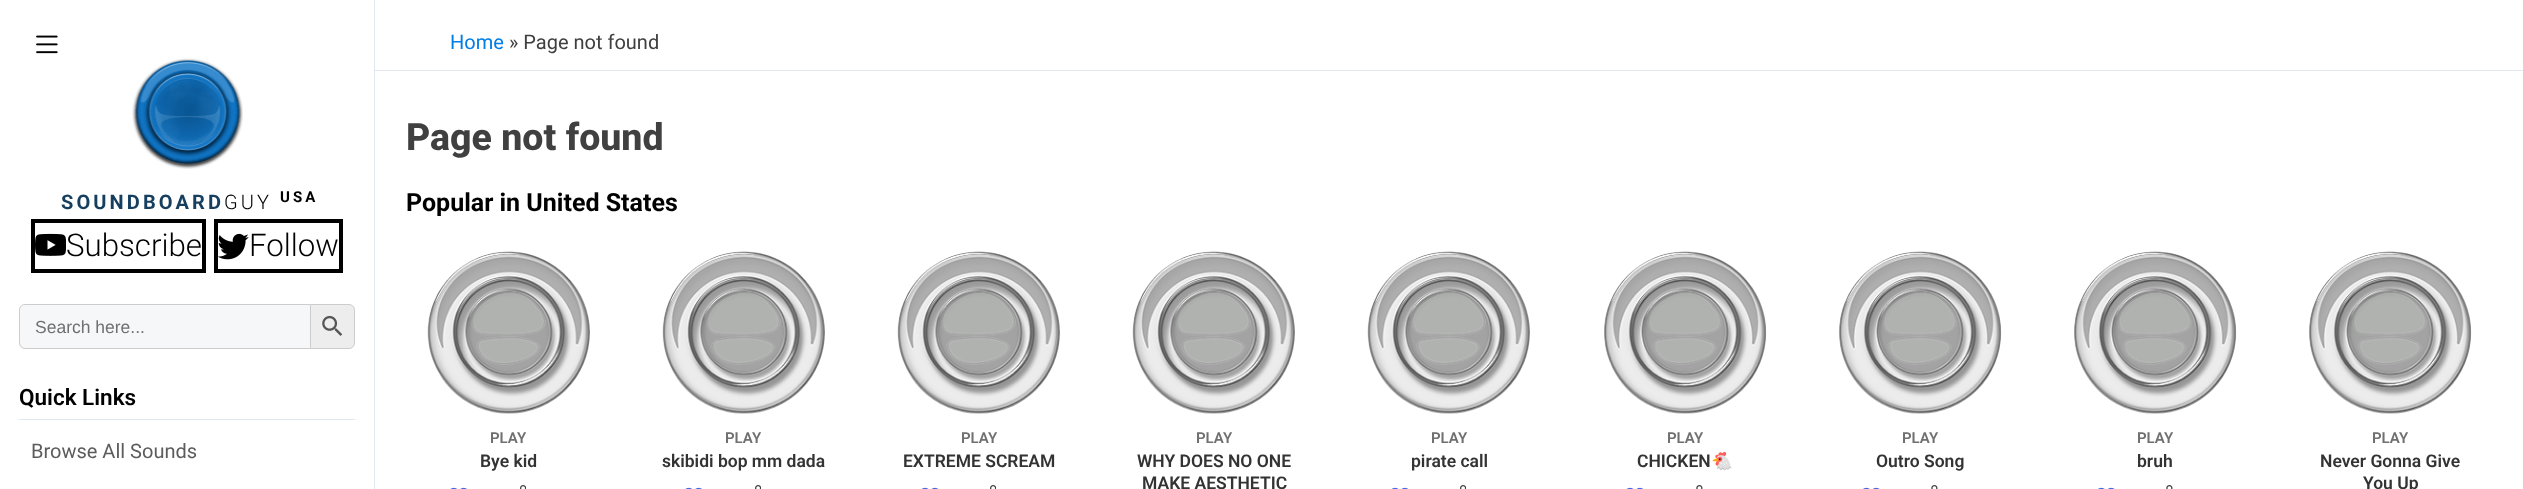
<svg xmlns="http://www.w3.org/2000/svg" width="2523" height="489">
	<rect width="100%" height="100%" fill="#FFFFFF" />
	<image x="36" y="35" width="22" height="19" href="assets/img1.png" />
	<rect x="375" y="70" width="2148" height="1" fill="#E2E8F0" />
	<text x="450" y="49" font-family="Roboto" font-size="20" fill="#007EE6">Home</text>
	<text x="509" y="49" font-family="Roboto" font-size="20" fill="#404040">» Page not found</text>
	<text x="406" y="150" font-family="Roboto" font-size="37.5" font-weight="800" fill="#404040">Page not found</text>
	<text x="406" y="211" font-family="Roboto" font-size="25" font-weight="700" fill="#000000">Popular in United States</text>
	<image x="427" y="251" width="163" height="163" href="assets/img2.png" />
	<text x="490" y="443" font-family="Roboto" font-size="15" font-weight="600" fill="#707070">PLAY</text>
	<text x="480" y="467" font-family="Roboto" font-size="17.5" font-weight="600" fill="#333333">Bye kid</text>
	<image x="450" y="487" width="17" height="2" href="assets/img3.png" />
	<image x="520" y="485" width="6" height="4" href="assets/img4.png" />
	<image x="662" y="251" width="163" height="163" href="assets/img5.png" />
	<text x="725" y="443" font-family="Roboto" font-size="15" font-weight="600" fill="#707070">PLAY</text>
	<text x="662" y="467" font-family="Roboto" font-size="17.5" font-weight="600" fill="#333333">skibidi bop mm dada</text>
	<image x="685" y="487" width="17" height="2" href="assets/img3.png" />
	<image x="755" y="485" width="6" height="4" href="assets/img4.png" />
	<image x="897" y="251" width="163" height="163" href="assets/img6.png" />
	<text x="961" y="443" font-family="Roboto" font-size="15" font-weight="600" fill="#707070">PLAY</text>
	<text x="903" y="467" font-family="Roboto" font-size="17.5" font-weight="600" fill="#333333">EXTREME SCREAM</text>
	<image x="921" y="487" width="18" height="2" href="assets/img7.png" />
	<image x="990" y="485" width="6" height="4" href="assets/img4.png" />
	<image x="1132" y="251" width="163" height="163" href="assets/img8.png" />
	<text x="1196" y="443" font-family="Roboto" font-size="15" font-weight="600" fill="#707070">PLAY</text>
	<g font-family="Roboto" font-size="17.5" font-weight="600" fill="#333333">
		<text x="1137" y="467">WHY DOES NO ONE</text>
		<text x="1142" y="489">MAKE AESTHETIC</text>
	</g>
	<image x="1367" y="251" width="163" height="163" href="assets/img9.png" />
	<text x="1431" y="443" font-family="Roboto" font-size="15" font-weight="600" fill="#707070">PLAY</text>
	<text x="1411" y="467" font-family="Roboto" font-size="17.5" font-weight="600" fill="#333333">pirate call</text>
	<image x="1391" y="487" width="18" height="2" href="assets/img7.png" />
	<image x="1460" y="485" width="6" height="4" href="assets/img4.png" />
	<image x="1604" y="251" width="163" height="163" href="assets/img10.png" />
	<text x="1667" y="443" font-family="Roboto" font-size="15" font-weight="600" fill="#707070">PLAY</text>
	<text x="1637" y="467" font-family="Roboto" font-size="17.5" font-weight="600" fill="#333333">CHICKEN</text>
	<text x="1711" y="467" font-family="Noto Color Emoji" font-size="17.5" font-weight="700" fill="#333333">🐔</text>
	<image x="1626" y="487" width="18" height="2" href="assets/img7.png" />
	<image x="1696" y="485" width="7" height="4" href="assets/img11.png" />
	<image x="1839" y="251" width="163" height="163" href="assets/img12.png" />
	<text x="1902" y="443" font-family="Roboto" font-size="15" font-weight="600" fill="#707070">PLAY</text>
	<text x="1876" y="467" font-family="Roboto" font-size="17.5" font-weight="600" fill="#333333">Outro Song</text>
	<image x="1863" y="487" width="17" height="2" href="assets/img13.png" />
	<image x="1931" y="485" width="7" height="4" href="assets/img11.png" />
	<image x="2074" y="251" width="163" height="163" href="assets/img14.png" />
	<text x="2137" y="443" font-family="Roboto" font-size="15" font-weight="600" fill="#707070">PLAY</text>
	<text x="2137" y="467" font-family="Roboto" font-size="17.5" font-weight="600" fill="#333333">bruh</text>
	<image x="2098" y="487" width="17" height="2" href="assets/img13.png" />
	<image x="2166" y="485" width="7" height="4" href="assets/img11.png" />
	<image x="2309" y="251" width="163" height="163" href="assets/img14.png" />
	<text x="2372" y="443" font-family="Roboto" font-size="15" font-weight="600" fill="#707070">PLAY</text>
	<g font-family="Roboto" font-size="17.5" font-weight="600" fill="#333333">
		<text x="2320" y="467">Never Gonna Give</text>
		<text x="2363" y="489">You Up</text>
	</g>
	<rect x="374" y="0" width="1" height="489" fill="#E2E8F0" />
	<image x="132" y="58" width="111" height="111" href="assets/img15.png" />
	<text x="61" y="209" font-family="Roboto" font-size="20" font-weight="700" letter-spacing="3.1" fill="#163F5F">SOUNDBOARD</text>
	<text x="224" y="209" font-family="Roboto" font-size="20" font-weight="300" letter-spacing="3.1" fill="#000000">GUY</text>
	<text x="280" y="202" font-family="Roboto" font-size="15" font-weight="700" letter-spacing="3.1" fill="#000000">USA</text>
	<rect x="33" y="221" width="171" height="50" fill="none" stroke="#000000" stroke-width="4" />
	<image x="35" y="233" width="31" height="23" href="assets/img16.png" />
	<text x="66" y="256" font-family="Roboto" font-size="31.25" font-weight="300" fill="#000000">Subscribe</text>
	<rect x="216" y="221" width="125" height="50" fill="none" stroke="#000000" stroke-width="4" />
	<image x="218" y="233" width="31" height="27" href="assets/img17.png" />
	<text x="249" y="256" font-family="Roboto" font-size="31.25" font-weight="300" fill="#000000">Follow</text>
	<path d="M25 304H310V349H25C21.5 349 19 346.5 19 343V310C19 306.5 21.5 304 25 304Z" fill="#F6F7F8" />
	<path d="M25 304H310V349H25C22 349 19 346 19 342V310C19 307 22 304 25 304ZM25 305H310V348H25C22 348 20 345 20 342V310C20 307 22 305 25 305Z" fill="#CCCCCC" fill-rule="evenodd" />
	<text x="35" y="333" font-family="Liberation Sans" font-size="17.5" fill="#707070">Search here...</text>
	<path d="M310.5 304.5H349C352 304.5 354.5 307 354.5 310V343C354.5 346 352 348.5 349 348.5H310.5Z" fill="#EDEDED" stroke="#CCCCCC" />
	<image x="322" y="315" width="21" height="21" href="assets/img18.png" />
	<rect x="19" y="419" width="336" height="1" fill="#E2E8F0" />
	<text x="19" y="405" font-family="Roboto" font-size="22.5" font-weight="600" fill="#000000">Quick Links</text>
	<text x="31" y="458" font-family="Roboto" font-size="20" fill="#5C5C5C">Browse All Sounds</text>
</svg>
